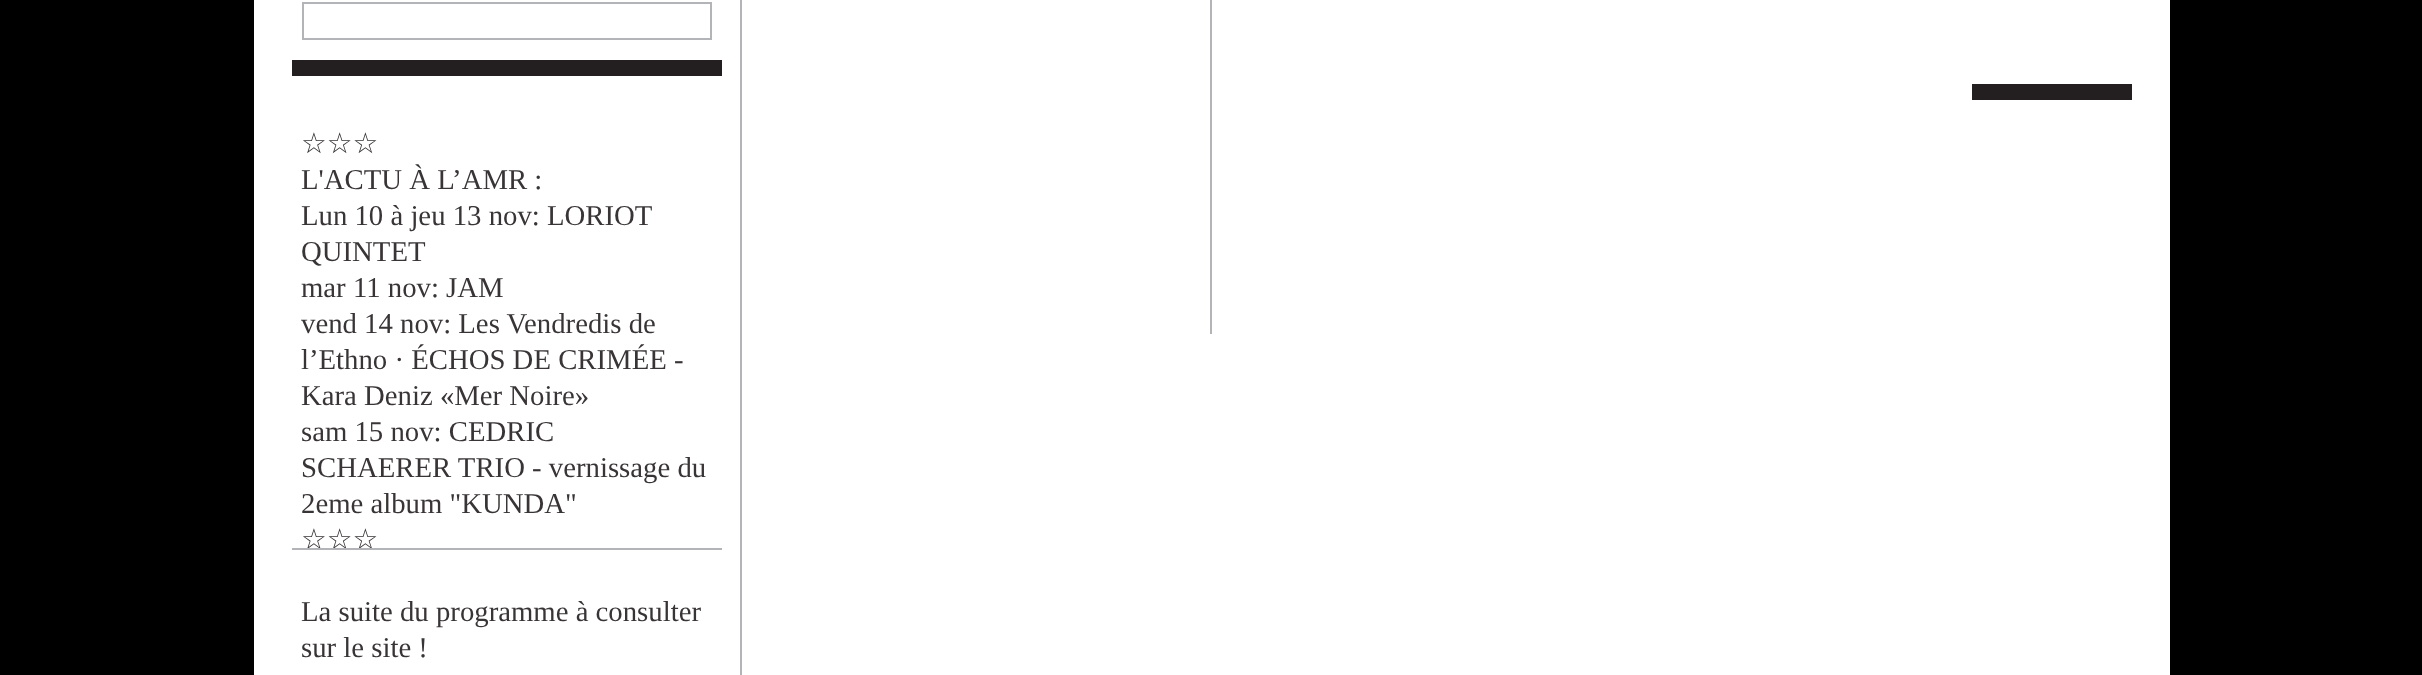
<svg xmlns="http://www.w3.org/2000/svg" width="2422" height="675">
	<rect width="100%" height="100%" fill="#000000" />
	<rect x="254" y="0" width="1916" height="675" fill="#FFFFFF" />
	<rect x="740" y="0" width="2" height="675" fill="#B3B4B7" />
	<rect x="303" y="3" width="408" height="36" fill="none" stroke="#B3B4B7" stroke-width="2" />
	<rect x="292" y="60" width="430" height="16" fill="#231F20" />
	<text x="301" y="153" font-family="DejaVu Sans" font-size="28.75" fill="#393536">☆☆☆</text>
	<g font-family="Liberation Serif" font-size="28.75" fill="#393536">
		<text x="301" y="189">L'ACTU À L’AMR :</text>
		<text x="301" y="225">Lun 10 à jeu 13 nov: LORIOT</text>
		<text x="301" y="261">QUINTET</text>
		<text x="301" y="297">mar 11 nov: JAM</text>
		<text x="301" y="333">vend 14 nov: Les Vendredis de</text>
		<text x="301" y="369">l’Ethno · ÉCHOS DE CRIMÉE -</text>
		<text x="301" y="405">Kara Deniz «Mer Noire»</text>
		<text x="301" y="441">sam 15 nov: CEDRIC</text>
		<text x="301" y="477">SCHAERER TRIO - vernissage du</text>
		<text x="301" y="513">2eme album "KUNDA"</text>
	</g>
	<text x="301" y="549" font-family="DejaVu Sans" font-size="28.75" fill="#393536">☆☆☆</text>
	<g font-family="Liberation Serif" font-size="28.75" fill="#393536">
		<text x="301" y="621">La suite du programme à consulter</text>
		<text x="301" y="657">sur le site !</text>
	</g>
	<rect x="292" y="548" width="430" height="2" fill="#B3B4B7" />
	<rect x="1210" y="0" width="2" height="334" fill="#B3B4B7" />
	<rect x="1972" y="84" width="160" height="16" fill="#231F20" />
</svg>
